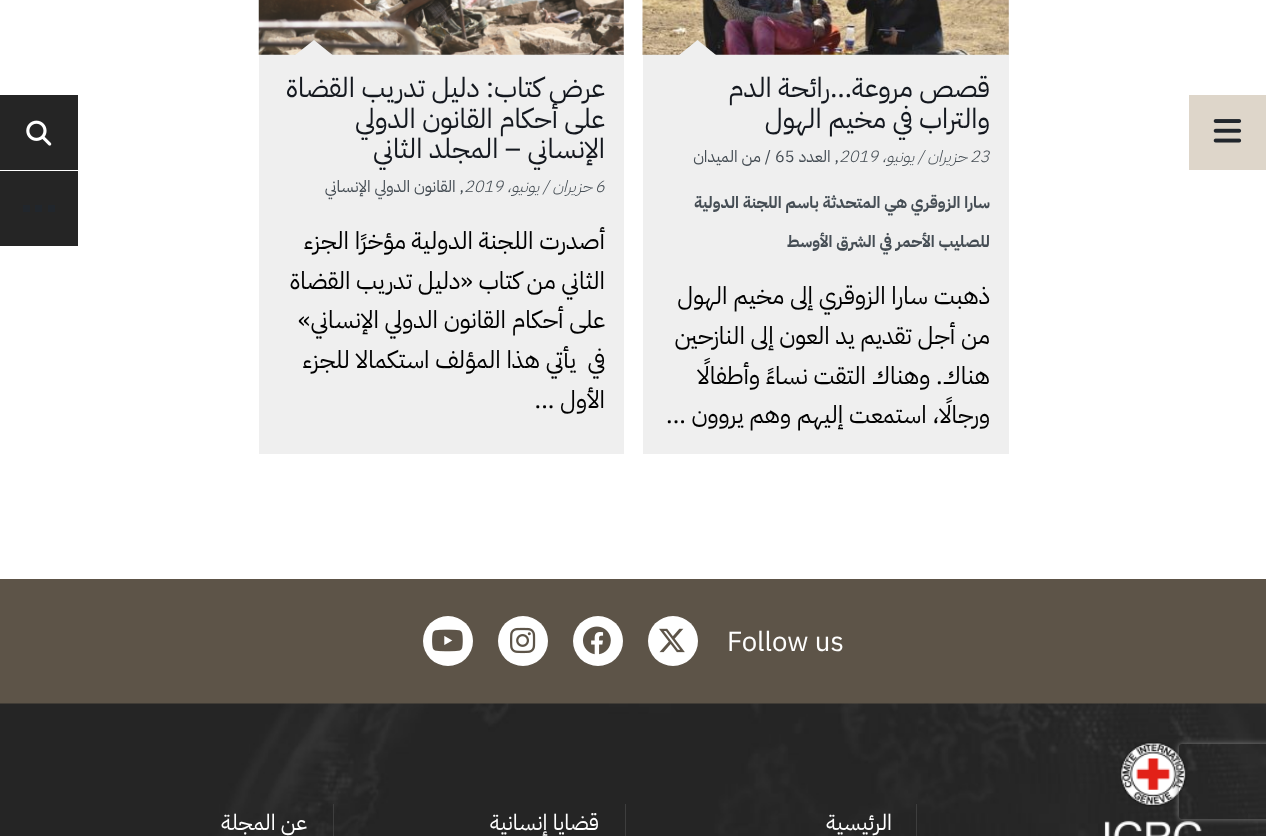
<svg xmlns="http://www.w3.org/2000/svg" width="1266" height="836">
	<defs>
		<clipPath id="clip1"><path d="M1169 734H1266V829H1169ZM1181.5 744H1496.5C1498 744 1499 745 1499 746.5V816.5C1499 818 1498 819 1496.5 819H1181.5C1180 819 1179 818 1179 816.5V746.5C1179 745 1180 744 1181.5 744Z" clip-rule="evenodd" /></clipPath>
	</defs>
	<rect width="100%" height="100%" fill="#FFFFFF" />
	<rect x="643" y="0" width="366" height="454" fill="#EFEFEF" />
	<image x="642" y="0" width="367" height="55" href="assets/img1.png" />
	<path d="M716 55H679L697.5 40Z" fill="#EFEFEF" />
	<g font-family="IBM Plex Sans Arabic" font-size="27.5" direction="rtl" fill="#14181F">
		<text x="990" y="97">قصص مروعة…رائحة الدم</text>
		<text x="990" y="128">والتراب في مخيم الهول</text>
	</g>
	<text x="970" y="162" font-family="IBM Plex Sans Arabic" font-size="16.25" font-weight="300" font-style="italic" fill="#454D54">23</text>
	<text x="967" y="162" font-family="IBM Plex Sans Arabic" font-size="16.25" font-weight="300" font-style="italic" direction="rtl" fill="#454D54">حزيران / يونيو،</text>
	<text x="839" y="162" font-family="IBM Plex Sans Arabic" font-size="16.25" font-weight="300" font-style="italic" fill="#454D54">2019</text>
	<text x="839" y="162" font-family="IBM Plex Sans Arabic" font-size="16.25" direction="rtl" fill="#454D54">, العدد</text>
	<text x="775" y="162" font-family="IBM Plex Sans Arabic" font-size="16.25" fill="#454D54">65</text>
	<text x="771" y="162" font-family="IBM Plex Sans Arabic" font-size="16.25" direction="rtl" fill="#454D54">/ من الميدان</text>
	<g font-family="IBM Plex Sans Arabic" font-size="16.25" font-weight="700" direction="rtl" fill="#454D54">
		<text x="990" y="208">سارا الزوقري هي المتحدثة باسم اللجنة الدولية</text>
		<text x="990" y="247">للصليب الأحمر في الشرق الأوسط</text>
	</g>
	<g font-family="IBM Plex Sans Arabic" font-size="24.25" direction="rtl" fill="#000000">
		<text x="990" y="304">ذهبت سارا الزوقري إلى مخيم الهول</text>
		<text x="990" y="344">من أجل تقديم يد العون إلى النازحين</text>
		<text x="990" y="384">هناك. وهناك التقت نساءً وأطفالًا</text>
		<text x="990" y="423">ورجالًا، استمعت إليهم وهم يروون ...</text>
	</g>
	<rect x="259" y="0" width="365" height="454" fill="#EFEFEF" />
	<image x="258" y="0" width="366" height="55" href="assets/img2.png" />
	<path d="M332.5 55H295L314 40Z" fill="#EFEFEF" />
	<g font-family="IBM Plex Sans Arabic" font-size="27.5" direction="rtl" fill="#14181F">
		<text x="605" y="97">عرض كتاب: دليل تدريب القضاة</text>
		<text x="605" y="128">على أحكام القانون الدولي</text>
		<text x="605" y="158">الإنساني – المجلد الثاني</text>
	</g>
	<text x="595" y="192" font-family="IBM Plex Sans Arabic" font-size="16.25" font-weight="300" font-style="italic" fill="#454D54">6</text>
	<text x="592" y="192" font-family="IBM Plex Sans Arabic" font-size="16.25" font-weight="300" font-style="italic" direction="rtl" fill="#454D54">حزيران / يونيو،</text>
	<text x="464" y="192" font-family="IBM Plex Sans Arabic" font-size="16.25" font-weight="300" font-style="italic" fill="#454D54">2019</text>
	<text x="464" y="192" font-family="IBM Plex Sans Arabic" font-size="16.25" direction="rtl" fill="#454D54">, القانون الدولي الإنساني</text>
	<g font-family="IBM Plex Sans Arabic" font-size="24.25" direction="rtl" fill="#000000">
		<text x="605" y="249">أصدرت اللجنة الدولية مؤخرًا الجزء</text>
		<text x="605" y="289">الثاني من كتاب «دليل تدريب القضاة</text>
		<text x="605" y="328">على أحكام القانون الدولي الإنساني»</text>
		<text x="605" y="368" xml:space="preserve">في  يأتي هذا المؤلف استكمالا للجزء</text>
		<text x="605" y="408">الأول ...</text>
	</g>
	<rect x="1189" y="95" width="77" height="75" fill="#DED6CA" />
	<image x="1213" y="119" width="29" height="24" href="assets/img3.png" />
	<rect x="0" y="95" width="78" height="75" fill="#252525" />
	<image x="26" y="120" width="26" height="26" href="assets/img4.png" />
	<rect x="0" y="171" width="78" height="75" fill="#252525" />
	<rect x="48" y="205" width="7" height="7" fill="#21262C" />
	<rect x="35" y="205" width="7" height="7" fill="#21262C" />
	<rect x="23" y="205" width="7" height="7" fill="#21262C" />
	<rect x="0" y="579" width="1266" height="125" fill="#5D5448" />
	<image x="0" y="703" width="1266" height="133" href="assets/img9.png" />
	<image x="1104" y="742" width="98" height="94" href="assets/img10.png" />
	<g clip-path="url(#clip1)">
		<rect x="1179" y="744" width="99" height="75" rx="2.5" fill="#808080" filter="blur(3px)" />
	</g>
	<text x="727" y="651" font-family="IBM Plex Sans Arabic" font-size="27.5" fill="#FFFFFF">Follow us</text>
	<circle cx="673" cy="641" r="25" fill="#FFFFFF" />
	<image x="659" y="628" width="26" height="25" href="assets/img5.png" />
	<circle cx="598" cy="641" r="25" fill="#FFFFFF" />
	<image x="582" y="626" width="29" height="29" href="assets/img6.png" />
	<circle cx="523" cy="641" r="25" fill="#FFFFFF" />
	<image x="510" y="627" width="26" height="27" href="assets/img7.png" />
	<circle cx="448" cy="641" r="25" fill="#FFFFFF" />
	<image x="432" y="629" width="31" height="23" href="assets/img8.png" />
	<rect x="916" y="804" width="1" height="32" fill="#3E3E3E" />
	<text x="892" y="830" font-family="IBM Plex Sans Arabic" font-size="22" direction="rtl" fill="#FFFFFF">الرئيسية</text>
	<rect x="625" y="804" width="1" height="32" fill="#3E3E3E" />
	<text x="599" y="830" font-family="IBM Plex Sans Arabic" font-size="22" direction="rtl" fill="#FFFFFF">قضايا إنسانية</text>
	<rect x="333" y="804" width="1" height="32" fill="#3E3E3E" />
	<text x="307" y="830" font-family="IBM Plex Sans Arabic" font-size="22" direction="rtl" fill="#FFFFFF">عن المجلة</text>
</svg>
